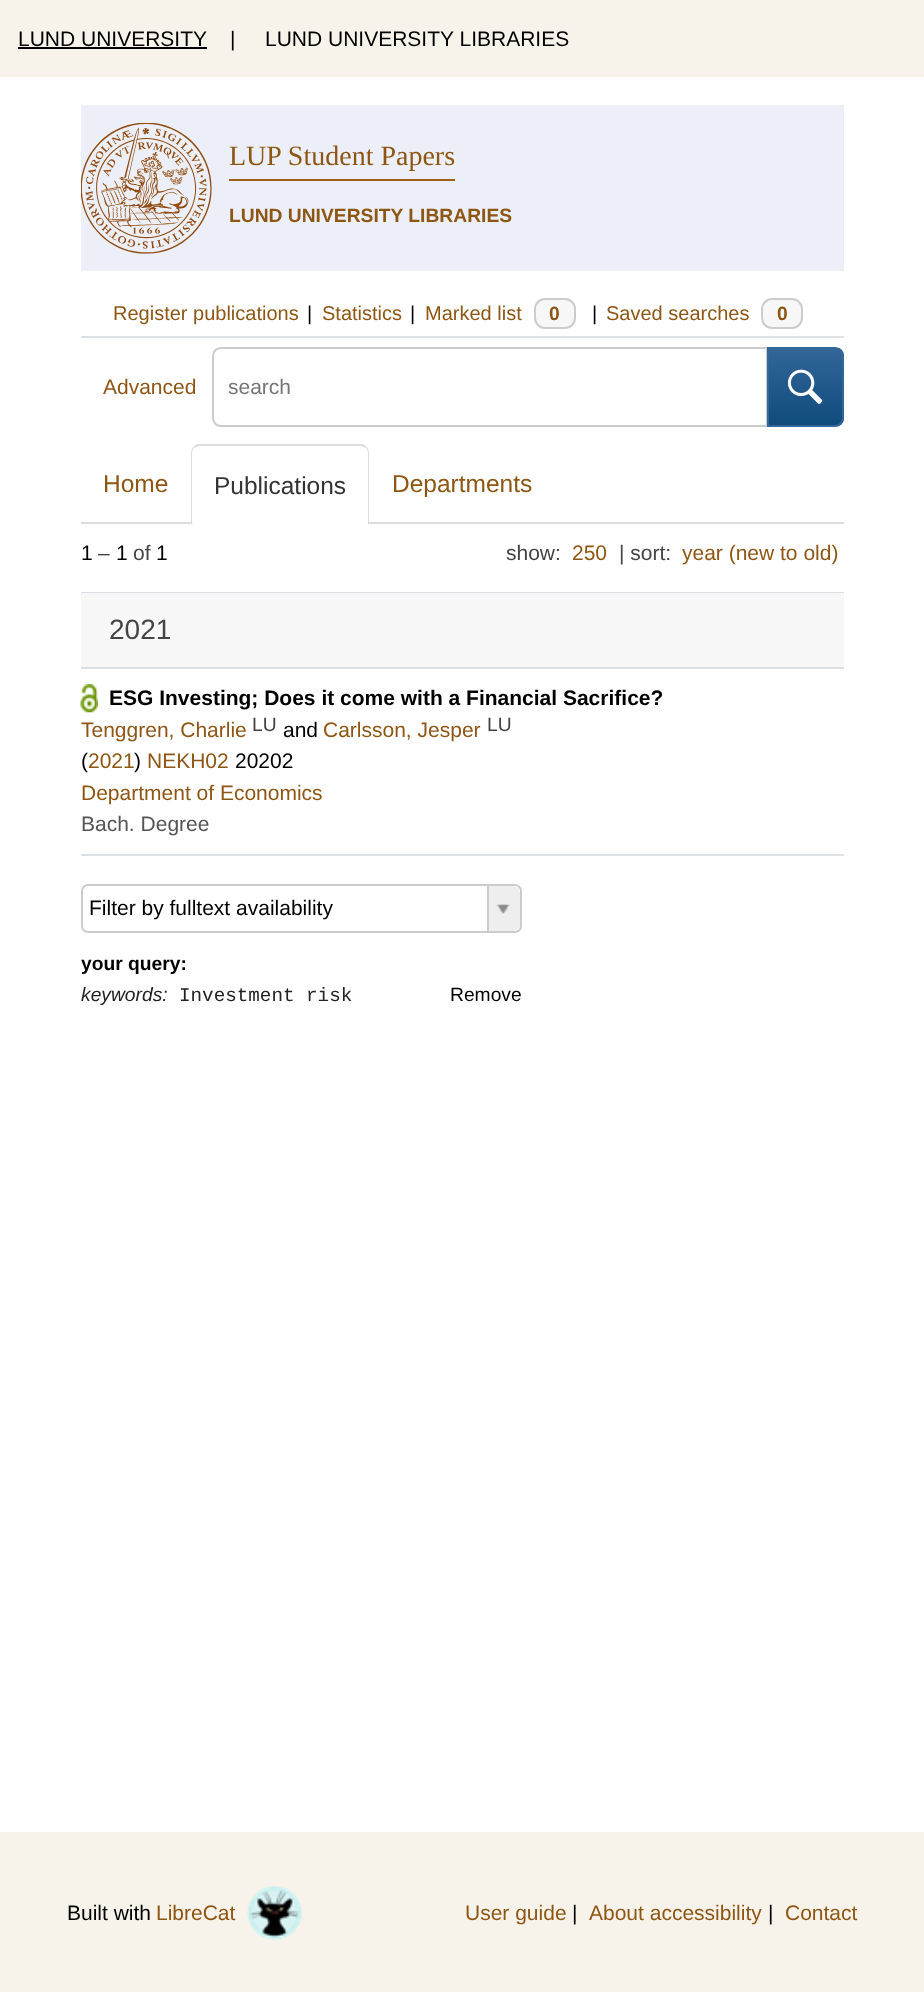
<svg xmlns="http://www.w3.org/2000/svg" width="924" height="1992">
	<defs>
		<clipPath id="clip1"><path d="M767 347H835C840 347 844 351 844 356V418C844 423 840 427 835 427H767Z" /></clipPath>
		<linearGradient id="g1" gradientUnits="userSpaceOnUse" x1="805" y1="348" x2="805" y2="425"><stop offset="0" stop-color="#336699" /><stop offset="1" stop-color="#104B7D" /></linearGradient>
	</defs>
	<rect width="100%" height="100%" fill="#FFFFFF" />
	<rect x="0" y="0" width="924" height="77" fill="#F8F3EA" />
	<text x="18" y="46" font-family="Liberation Sans" font-size="21" fill="#000000">LUND UNIVERSITY</text>
	<rect x="18" y="47" width="189" height="2" fill="#000000" />
	<g font-family="Liberation Sans" font-size="21" fill="#000000">
		<text x="230" y="46">|</text>
		<text x="265" y="46">LUND UNIVERSITY LIBRARIES</text>
	</g>
	<rect x="81" y="105" width="763" height="166" fill="#ECEFF8" />
	<image x="81" y="123" width="131" height="131" href="assets/img1.png" />
	<text x="229" y="165" font-family="Liberation Serif" font-size="28" fill="#8E5614">LUP Student Papers</text>
	<rect x="229" y="179" width="226" height="2" fill="#9C6114" />
	<text x="229" y="222" font-family="Liberation Sans" font-size="19.25" font-weight="700" fill="#8E5614">LUND UNIVERSITY LIBRARIES</text>
	<rect x="81" y="336" width="763" height="2" fill="#DCDFE4" />
	<text x="113" y="320" font-family="Liberation Sans" font-size="20" fill="#8E5614">Register publications</text>
	<text x="307" y="320" font-family="Liberation Sans" font-size="20" fill="#000000">|</text>
	<text x="322" y="320" font-family="Liberation Sans" font-size="20" fill="#8E5614">Statistics</text>
	<text x="410" y="320" font-family="Liberation Sans" font-size="20" fill="#000000">|</text>
	<text x="425" y="320" font-family="Liberation Sans" font-size="20" fill="#8E5614">Marked list</text>
	<rect x="535" y="299" width="40" height="29" rx="10" fill="#F7F7F7" stroke="#CCCCCC" stroke-width="2" />
	<text x="549" y="320" font-family="Liberation Sans" font-size="19.25" font-weight="700" fill="#8E5614">0</text>
	<text x="592" y="320" font-family="Liberation Sans" font-size="20" fill="#000000">|</text>
	<text x="606" y="320" font-family="Liberation Sans" font-size="20" fill="#8E5614">Saved searches</text>
	<rect x="762" y="299" width="40" height="29" rx="10" fill="#F7F7F7" stroke="#CCCCCC" stroke-width="2" />
	<text x="777" y="320" font-family="Liberation Sans" font-size="19.25" font-weight="700" fill="#8E5614">0</text>
	<text x="103" y="394" font-family="Liberation Sans" font-size="21" fill="#8E5614">Advanced</text>
	<path d="M221 348H767V426H221C216.5 426 213 422.5 213 418V356C213 351.5 216.5 348 221 348Z" fill="none" stroke="#CCCCCC" stroke-width="2" />
	<text x="228" y="394" font-family="Liberation Sans" font-size="21" fill="#757575">search</text>
	<g clip-path="url(#clip1)">
		<rect x="769" y="348" width="75" height="77" fill="url(#g1)" />
	</g>
	<path d="M768 348H835C839.5 348 843 351.5 843 356V418C843 422.5 839.5 426 835 426H768Z" fill="none" stroke="#336699" stroke-width="2" />
	<image x="788" y="369" width="35" height="35" href="assets/img2.png" />
	<rect x="81" y="522" width="763" height="2" fill="#DDDDDD" />
	<text x="103" y="492" font-family="Liberation Sans" font-size="24.5" fill="#8E5614">Home</text>
	<path d="M200 445H360C365 445 369 449 369 454V525H191V454C191 449 195 445 200 445Z" fill="#FFFFFF" />
	<path d="M200 446C198 446 196 447 194 448L193 447L197 444H363L367 447L366 448C364 447 362 446 360 446Z" fill="#DDDDDD" />
	<path d="M367 447C368 449 369 451 369 453V525L367 523H368V452L366 448Z" fill="#DDDDDD" />
	<path d="M191 525H369L367 523H193Z" fill="#FFFFFF" />
	<path d="M191 525V453C191 451 192 449 193 447L194 448L192 452V523H193Z" fill="#DDDDDD" />
	<text x="214" y="494" font-family="Liberation Sans" font-size="24.5" fill="#333333">Publications</text>
	<text x="392" y="492" font-family="Liberation Sans" font-size="24.5" fill="#8E5614">Departments</text>
	<text x="81" y="560" font-family="Liberation Sans" font-size="21" fill="#000000">1</text>
	<text x="98" y="560" font-family="Liberation Sans" font-size="21" fill="#444444">–</text>
	<text x="116" y="560" font-family="Liberation Sans" font-size="21" fill="#000000">1</text>
	<text x="133" y="560" font-family="Liberation Sans" font-size="21" fill="#444444">of</text>
	<text x="156" y="560" font-family="Liberation Sans" font-size="21" fill="#000000">1</text>
	<text x="506" y="560" font-family="Liberation Sans" font-size="21" fill="#444444">show:</text>
	<text x="572" y="560" font-family="Liberation Sans" font-size="21" fill="#8E5614">250</text>
	<text x="619" y="560" font-family="Liberation Sans" font-size="21" fill="#444444">| sort:</text>
	<text x="682" y="560" font-family="Liberation Sans" font-size="21" fill="#8E5614">year (new to old)</text>
	<rect x="81" y="592" width="763" height="1" fill="#DCDFE4" />
	<rect x="81" y="593" width="763" height="74" fill="#F7F7F7" />
	<rect x="81" y="667" width="763" height="2" fill="#DCDFE4" />
	<text x="109" y="639" font-family="Liberation Sans" font-size="28" fill="#444444">2021</text>
	<image x="80" y="684" width="18" height="29" href="assets/img3.png" />
	<rect x="81" y="854" width="763" height="2" fill="#DCDFE4" />
	<text x="109" y="705" font-family="Liberation Sans" font-size="21" font-weight="700" fill="#000000">ESG Investing; Does it come with a Financial Sacrifice?</text>
	<text x="81" y="737" font-family="Liberation Sans" font-size="21" fill="#8E5614">Tenggren, Charlie</text>
	<text x="252" y="731" font-family="Liberation Sans" font-size="19.25" fill="#444444">LU</text>
	<text x="283" y="737" font-family="Liberation Sans" font-size="21" fill="#000000">and</text>
	<text x="323" y="737" font-family="Liberation Sans" font-size="21" fill="#8E5614">Carlsson, Jesper</text>
	<text x="487" y="731" font-family="Liberation Sans" font-size="19.25" fill="#444444">LU</text>
	<text x="81" y="768" font-family="Liberation Sans" font-size="21" fill="#000000">(</text>
	<text x="88" y="768" font-family="Liberation Sans" font-size="21" fill="#8E5614">2021</text>
	<text x="134" y="768" font-family="Liberation Sans" font-size="21" fill="#000000">)</text>
	<text x="147" y="768" font-family="Liberation Sans" font-size="21" fill="#8E5614">NEKH02</text>
	<text x="235" y="768" font-family="Liberation Sans" font-size="21" fill="#000000">20202</text>
	<text x="81" y="800" font-family="Liberation Sans" font-size="21" fill="#8E5614">Department of Economics</text>
	<text x="81" y="831" font-family="Liberation Sans" font-size="21" fill="#555555">Bach. Degree</text>
	<rect x="82" y="885" width="439" height="47" rx="6" fill="none" stroke="#CCCCCC" stroke-width="2" />
	<text x="89" y="915" font-family="Liberation Sans" font-size="21" fill="#000000">Filter by fulltext availability</text>
	<path d="M487 886H513C517 886 520 889 520 893V924C520 928 517 931 513 931H487Z" fill="#EEEEEE" />
	<rect x="487" y="886" width="2" height="45" fill="#CCCCCC" />
	<image x="496" y="904" width="14" height="12" href="assets/img4.png" />
	<text x="81" y="970" font-family="Liberation Sans" font-size="19.25" font-weight="700" fill="#000000">your query:</text>
	<text x="81" y="1001" font-family="Liberation Sans" font-size="19.25" font-style="italic" fill="#222222">keywords:</text>
	<text x="179" y="1001" font-family="Liberation Mono" font-size="19.25" fill="#222222">Investment risk</text>
	<text x="450" y="1001" font-family="Liberation Sans" font-size="19.25" fill="#000000">Remove</text>
	<rect x="0" y="1832" width="924" height="160" fill="#F8F3EA" />
	<text x="67" y="1920" font-family="Liberation Sans" font-size="21" fill="#000000">Built with</text>
	<text x="156" y="1920" font-family="Liberation Sans" font-size="21" fill="#8E5614">LibreCat</text>
	<image x="247" y="1886" width="56" height="55" href="assets/img5.png" />
	<text x="465" y="1920" font-family="Liberation Sans" font-size="21" fill="#8E5614">User guide</text>
	<text x="572" y="1920" font-family="Liberation Sans" font-size="21" fill="#000000">|</text>
	<text x="589" y="1920" font-family="Liberation Sans" font-size="21" fill="#8E5614">About accessibility</text>
	<text x="768" y="1920" font-family="Liberation Sans" font-size="21" fill="#000000">|</text>
	<text x="785" y="1920" font-family="Liberation Sans" font-size="21" fill="#8E5614">Contact</text>
</svg>
